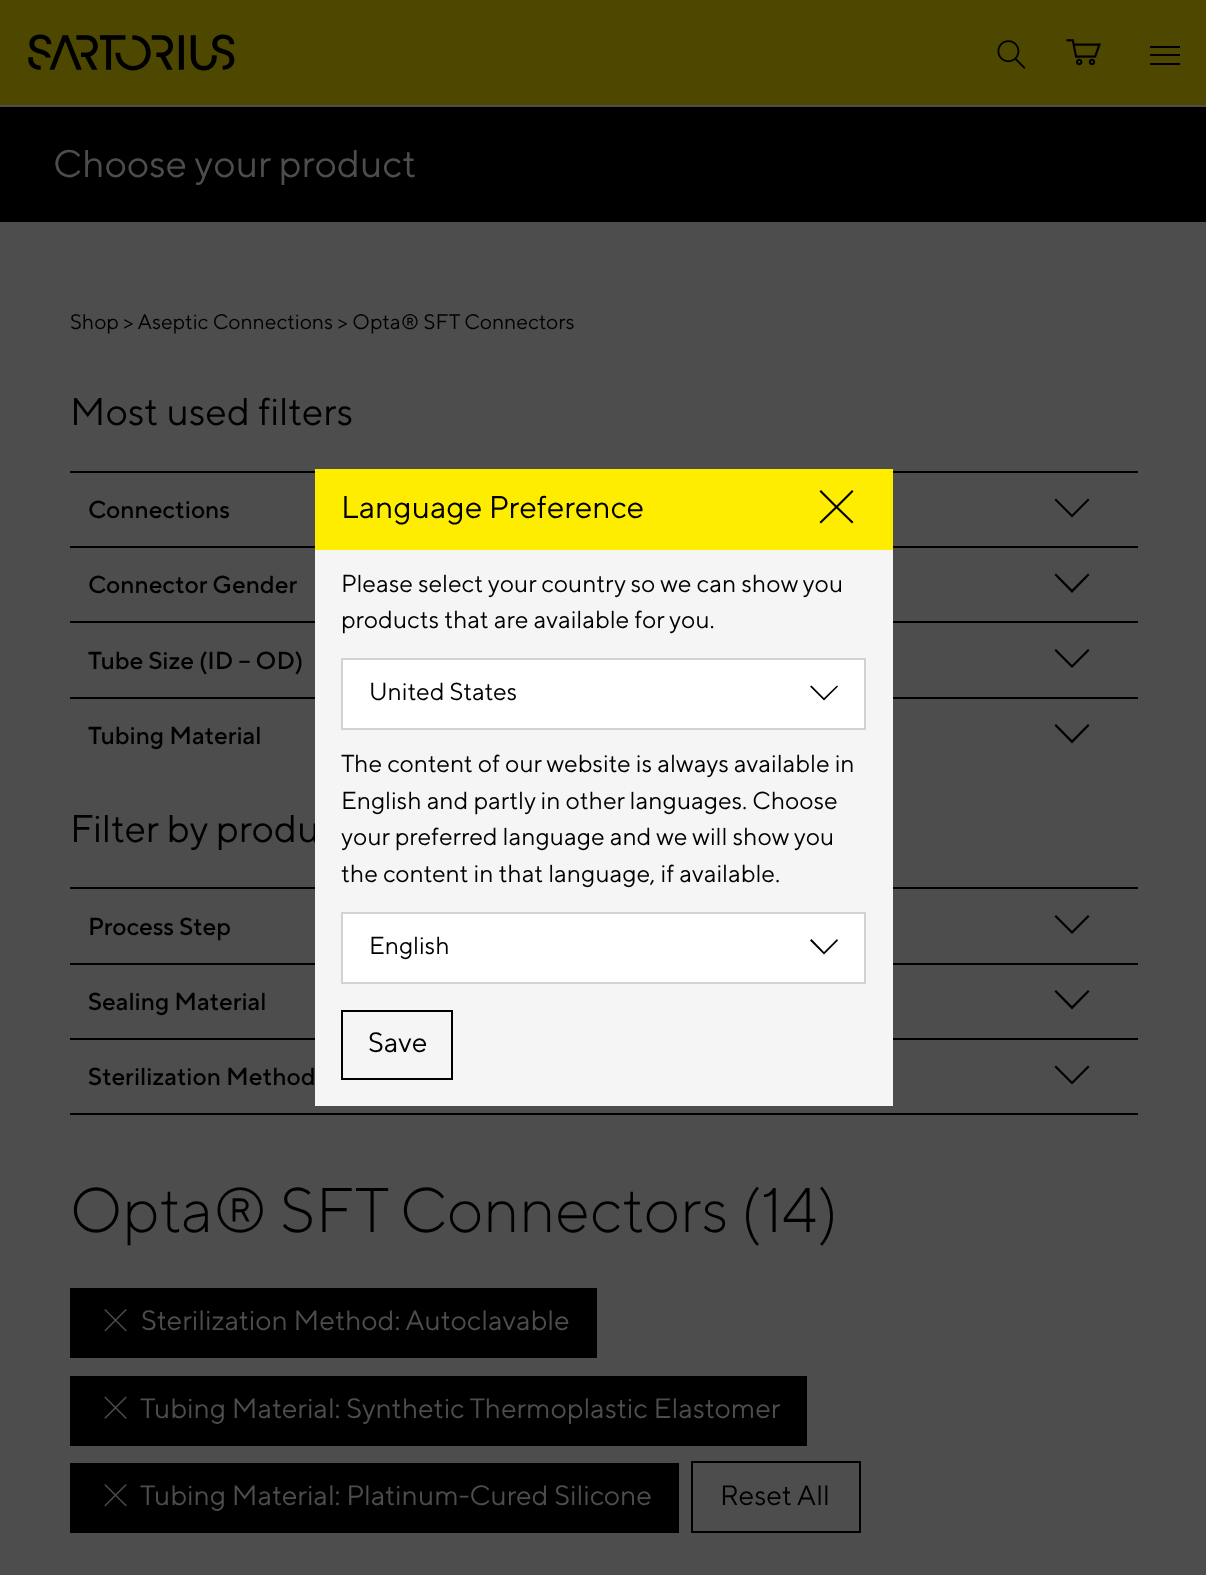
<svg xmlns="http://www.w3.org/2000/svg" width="1206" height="1575">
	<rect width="100%" height="100%" fill="#4D4D4D" />
	<rect x="0" y="0" width="1206" height="105" fill="#4D4700" />
	<image x="28" y="34" width="207" height="37" href="assets/img1.png" />
	<image x="997" y="40" width="29" height="29" href="assets/img2.png" />
	<image x="1066" y="39" width="35" height="27" href="assets/img3.png" />
	<rect x="1150" y="46" width="30" height="2" fill="#000000" />
	<rect x="1150" y="54" width="30" height="2" fill="#000000" />
	<rect x="1150" y="63" width="30" height="2" fill="#000000" />
	<rect x="0" y="107" width="1206" height="115" fill="#000000" />
	<text x="53" y="177" font-family="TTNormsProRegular" font-size="38.5" fill="#4D4D4D">Choose your product</text>
	<text x="70" y="329" font-family="TTNormsProRegular" font-size="21" fill="#000000">Shop &gt; Aseptic Connections &gt; Opta® SFT Connectors</text>
	<text x="70" y="425" font-family="TTNormsProRegular" font-size="38.5" fill="#000000">Most used filters</text>
	<rect x="70" y="471" width="1068" height="2" fill="#000000" />
	<text x="88" y="518" font-family="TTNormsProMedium" font-size="24.5" fill="#000000">Connections</text>
	<path d="M1072 517.5L1054.5 500L1056 498.5L1072 514.5L1088 498.5L1089.5 500Z" fill="#000000" />
	<rect x="70" y="546" width="1068" height="2" fill="#000000" />
	<text x="88" y="593" font-family="TTNormsProMedium" font-size="24.5" fill="#000000">Connector Gender</text>
	<path d="M1072 593L1054.5 575L1056 573.5L1072 589.5L1088 573.5L1089.5 575Z" fill="#000000" />
	<rect x="70" y="621" width="1068" height="2" fill="#000000" />
	<text x="88" y="669" font-family="TTNormsProMedium" font-size="24.5" fill="#000000">Tube Size (ID – OD)</text>
	<path d="M1072 668L1054.5 650.5L1056 649L1072 665L1088 649L1089.5 650.5Z" fill="#000000" />
	<rect x="70" y="697" width="1068" height="2" fill="#000000" />
	<text x="88" y="744" font-family="TTNormsProMedium" font-size="24.5" fill="#000000">Tubing Material</text>
	<path d="M1072 743.5L1054.5 725.5L1056 724L1072 740L1088 724L1089.5 725.5Z" fill="#000000" />
	<text x="70" y="842" font-family="TTNormsProRegular" font-size="38.5" fill="#000000">Filter by produ</text>
	<rect x="70" y="887" width="1068" height="2" fill="#000000" />
	<text x="88" y="935" font-family="TTNormsProMedium" font-size="24.5" fill="#000000">Process Step</text>
	<path d="M1072 934L1054.5 916.5L1056 915L1072 931L1088 915L1089.5 916.5Z" fill="#000000" />
	<rect x="70" y="963" width="1068" height="2" fill="#000000" />
	<text x="88" y="1010" font-family="TTNormsProMedium" font-size="24.5" fill="#000000">Sealing Material</text>
	<path d="M1072 1009.5L1054.5 991.5L1056 990L1072 1006L1088 990L1089.5 991.5Z" fill="#000000" />
	<rect x="70" y="1113" width="1068" height="2" fill="#000000" />
	<rect x="70" y="1038" width="1068" height="2" fill="#000000" />
	<text x="88" y="1085" font-family="TTNormsProMedium" font-size="24.5" fill="#000000">Sterilization Method</text>
	<path d="M1072 1084.5L1054.5 1067L1056 1065.5L1072 1081.5L1088 1065.5L1089.5 1067Z" fill="#000000" />
	<text x="70" y="1232" font-family="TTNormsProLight" font-size="63" fill="#000000">Opta® SFT Connectors (14)</text>
	<rect x="70" y="1288" width="527" height="70" fill="#000000" />
	<image x="104" y="1309" width="23" height="23" href="assets/img4.png" />
	<text x="141" y="1330" font-family="TTNormsProRegular" font-size="28" fill="#4D4D4D">Sterilization Method: Autoclavable</text>
	<rect x="70" y="1376" width="737" height="70" fill="#000000" />
	<image x="104" y="1396" width="23" height="23" href="assets/img5.png" />
	<text x="140" y="1418" font-family="TTNormsProRegular" font-size="28" fill="#4D4D4D">Tubing Material: Synthetic Thermoplastic Elastomer</text>
	<rect x="70" y="1463" width="609" height="70" fill="#000000" />
	<image x="104" y="1484" width="23" height="23" href="assets/img4.png" />
	<text x="140" y="1505" font-family="TTNormsProRegular" font-size="28" fill="#4D4D4D">Tubing Material: Platinum-Cured Silicone</text>
	<rect x="692" y="1462" width="168" height="70" fill="none" stroke="#000000" stroke-width="2" />
	<text x="720" y="1505" font-family="TTNormsProRegular" font-size="28" fill="#000000">Reset All</text>
	<rect x="315" y="550" width="578" height="556" fill="#F5F5F5" />
	<rect x="315" y="469" width="578" height="81" fill="#FFED00" />
	<text x="341" y="518" font-family="TTNormsProRegular" font-size="31.5" fill="#000000">Language Preference</text>
	<path d="M853.5 491.5L852 490L836.5 505.5L821 490L819.5 491.5L835 507L819.5 522L821 523.5L836.5 508.5L852 523.5L853.5 522L838 507Z" fill="#000000" />
	<g font-family="TTNormsProRegular" font-size="24.5" fill="#000000">
		<text x="341" y="592">Please select your country so we can show you</text>
		<text x="341" y="628">products that are available for you.</text>
	</g>
	<rect x="342" y="659" width="523" height="70" fill="#FFFFFF" stroke="#D2D2D2" stroke-width="2" />
	<text x="369" y="700" font-family="TTNormsProRegular" font-size="24.5" fill="#000000">United States</text>
	<path d="M824 700.5L810 686.5L811.5 685.5L824 698L837 685.5L838 686.5Z" fill="#000000" />
	<g font-family="TTNormsProRegular" font-size="24.5" fill="#000000">
		<text x="341" y="772">The content of our website is always available in</text>
		<text x="341" y="809">English and partly in other languages. Choose</text>
		<text x="341" y="845">your preferred language and we will show you</text>
		<text x="341" y="882">the content in that language, if available.</text>
	</g>
	<rect x="342" y="913" width="523" height="70" fill="#FFFFFF" stroke="#D2D2D2" stroke-width="2" />
	<text x="369" y="954" font-family="TTNormsProRegular" font-size="24.5" fill="#000000">English</text>
	<path d="M824 954.5L810 940.5L811.5 939L824 952L837 939L838 940.5Z" fill="#000000" />
	<rect x="342" y="1011" width="110" height="68" fill="none" stroke="#000000" stroke-width="2" />
	<text x="368" y="1052" font-family="TTNormsProRegular" font-size="28" fill="#000000">Save</text>
</svg>
